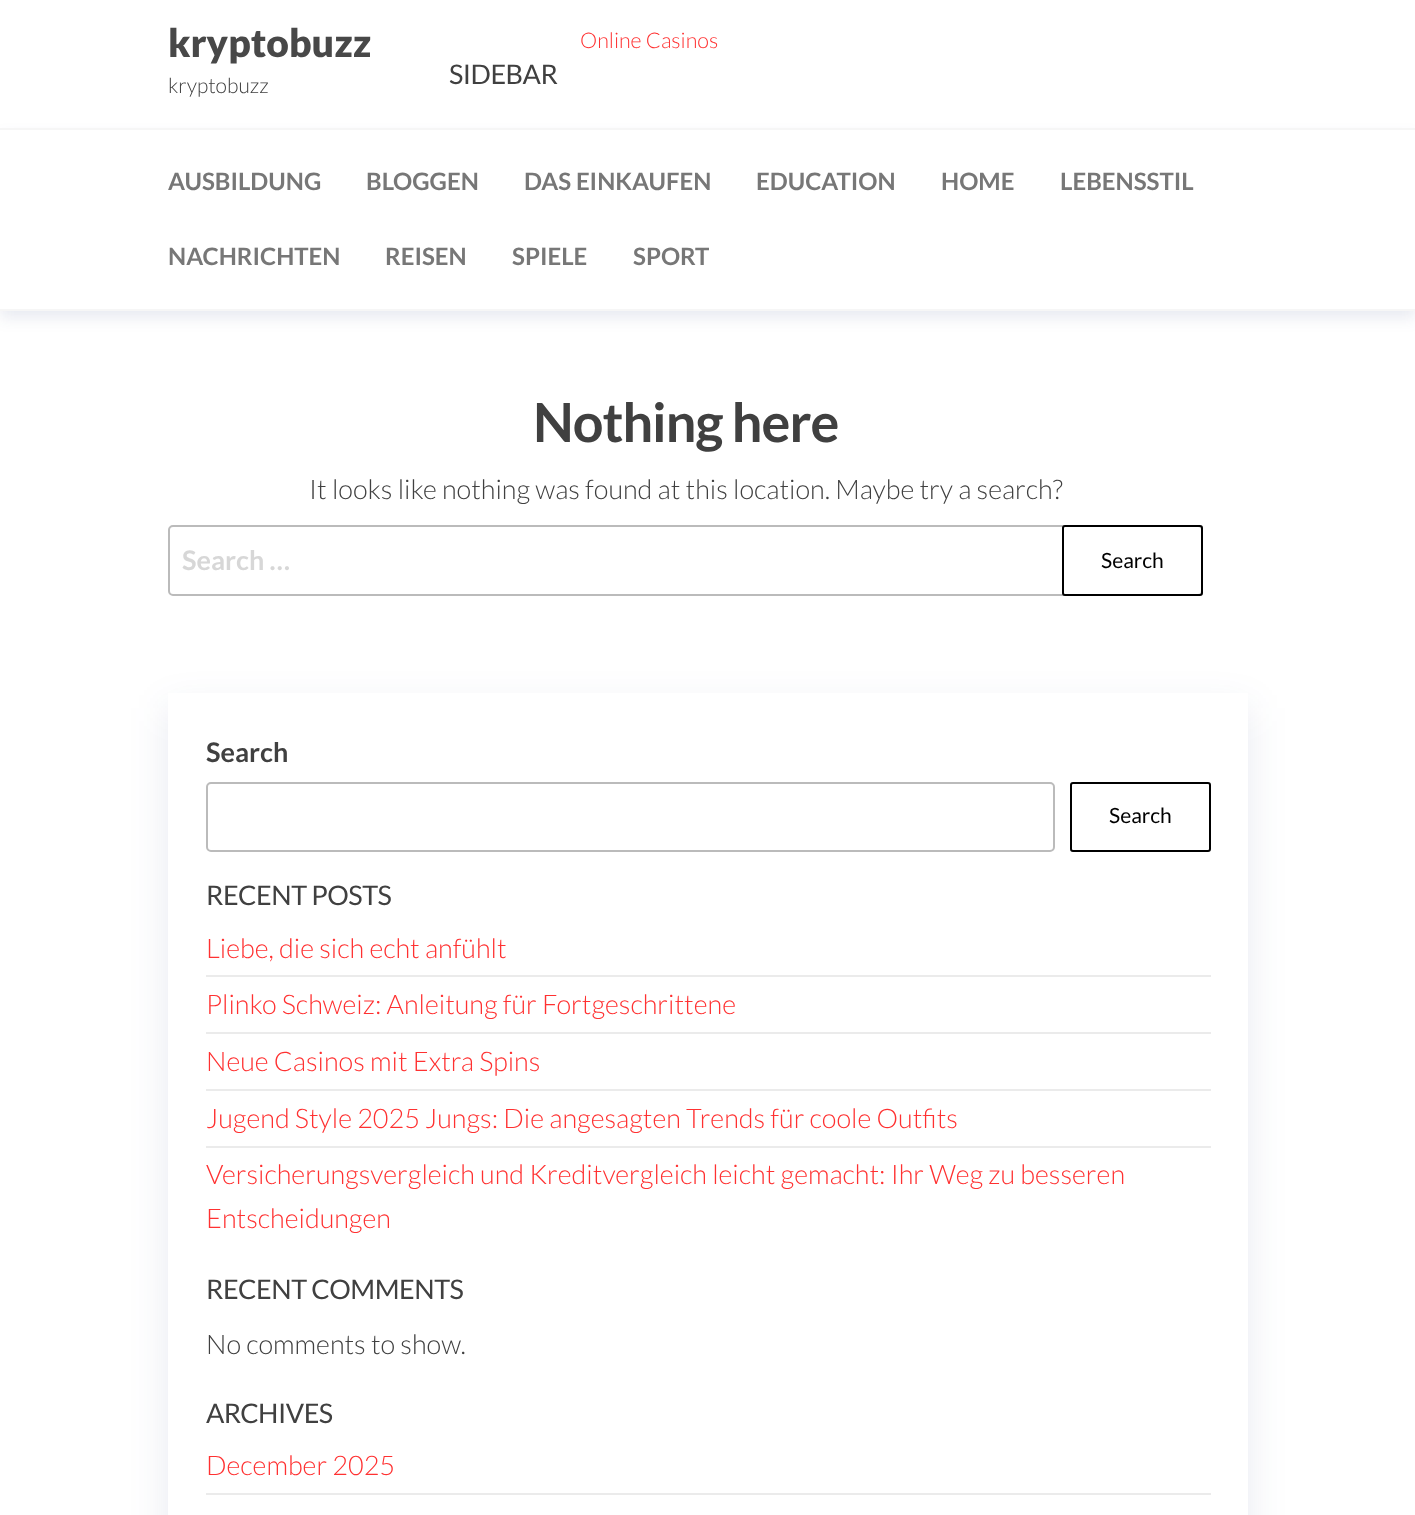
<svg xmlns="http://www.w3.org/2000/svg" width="1415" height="1515">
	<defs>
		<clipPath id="clip1"><path d="M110 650H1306V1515H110ZM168 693H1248V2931H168Z" clip-rule="evenodd" /></clipPath>
	</defs>
	<rect width="100%" height="100%" fill="#FFFFFF" />
	<rect x="0" y="137" width="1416" height="181" fill="#192D78" fill-opacity="0.1" filter="blur(7.5px)" />
	<rect x="0" y="128" width="1415" height="2" fill="#F6F6F6" />
	<text x="168" y="57" font-family="Lato" font-size="39" font-weight="900" fill="#484848">kryptobuzz</text>
	<text x="168" y="93" font-family="Lato" font-size="21" font-weight="300" fill="#404040">kryptobuzz</text>
	<text x="580" y="48" font-family="Lato" font-size="21.5" font-weight="300" fill="#FF3131">Online Casinos</text>
	<text x="449" y="84" font-family="Lato" font-size="27" letter-spacing="-0.5" fill="#404040">SIDEBAR</text>
	<rect x="0" y="130" width="1415" height="179" fill="#FFFFFF" />
	<rect x="0" y="309" width="1415" height="2" fill="#F6F6F6" />
	<g font-family="Lato" font-size="24" font-weight="700" fill="#777777">
		<text x="168" y="190">AUSBILDUNG</text>
		<text x="366" y="190">BLOGGEN</text>
		<text x="524" y="190">DAS EINKAUFEN</text>
		<text x="756" y="190">EDUCATION</text>
		<text x="941" y="190">HOME</text>
		<text x="1060" y="190">LEBENSSTIL</text>
		<text x="168" y="265">NACHRICHTEN</text>
		<text x="385" y="265">REISEN</text>
		<text x="512" y="265">SPIELE</text>
		<text x="633" y="265">SPORT</text>
	</g>
	<text x="533" y="442" font-family="Lato" font-size="54" font-weight="700" letter-spacing="-1" fill="#404040">Nothing here</text>
	<text x="309" y="499" font-family="Lato" font-size="27" font-weight="300" fill="#404040">It looks like nothing was found at this location. Maybe try a search?</text>
	<rect x="169" y="526" width="1033" height="69" rx="4" fill="none" stroke="#BBBBBB" stroke-width="2" />
	<text x="182" y="570" font-family="Lato" font-size="27" font-weight="700" fill="#D7D7D7">Search …</text>
	<rect x="1063" y="526" width="139" height="69" rx="2" fill="none" stroke="#000000" stroke-width="2" />
	<text x="1101" y="568" font-family="Lato" font-size="21" fill="#000000">Search</text>
	<g clip-path="url(#clip1)">
		<rect x="168" y="708" width="1080" height="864" fill="#1C2D71" fill-opacity="0.1" filter="blur(19px)" />
	</g>
	<text x="206" y="762" font-family="Lato" font-size="27" font-weight="700" fill="#404040">Search</text>
	<rect x="207" y="783" width="847" height="68" rx="4" fill="none" stroke="#BBBBBB" stroke-width="2" />
	<rect x="1071" y="783" width="139" height="68" rx="2" fill="none" stroke="#000000" stroke-width="2" />
	<text x="1109" y="823" font-family="Lato" font-size="21" fill="#000000">Search</text>
	<text x="206" y="905" font-family="Lato" font-size="27" letter-spacing="-0.5" fill="#404040">RECENT POSTS</text>
	<rect x="206" y="975" width="1005" height="2" fill="#EBEBEB" />
	<text x="206" y="958" font-family="Lato" font-size="27" font-weight="300" fill="#FF3131">Liebe, die sich echt anfühlt</text>
	<rect x="206" y="1032" width="1005" height="2" fill="#EBEBEB" />
	<text x="206" y="1014" font-family="Lato" font-size="27" font-weight="300" fill="#FF3131">Plinko Schweiz: Anleitung für Fortgeschrittene</text>
	<rect x="206" y="1089" width="1005" height="2" fill="#EBEBEB" />
	<text x="206" y="1071" font-family="Lato" font-size="27" font-weight="300" fill="#FF3131">Neue Casinos mit Extra Spins</text>
	<rect x="206" y="1146" width="1005" height="2" fill="#EBEBEB" />
	<g font-family="Lato" font-size="27" font-weight="300" fill="#FF3131">
		<text x="206" y="1128">Jugend Style 2025 Jungs: Die angesagten Trends für coole Outfits</text>
		<text x="206" y="1184">Versicherungsvergleich und Kreditvergleich leicht gemacht: Ihr Weg zu besseren</text>
		<text x="206" y="1228">Entscheidungen</text>
	</g>
	<text x="206" y="1299" font-family="Lato" font-size="27" letter-spacing="-0.5" fill="#404040">RECENT COMMENTS</text>
	<text x="206" y="1354" font-family="Lato" font-size="27" font-weight="300" fill="#404040">No comments to show.</text>
	<text x="206" y="1423" font-family="Lato" font-size="27" letter-spacing="-0.5" fill="#404040">ARCHIVES</text>
	<rect x="206" y="1493" width="1005" height="2" fill="#EBEBEB" />
	<text x="206" y="1475" font-family="Lato" font-size="27" font-weight="300" fill="#FF3131">December 2025</text>
</svg>
